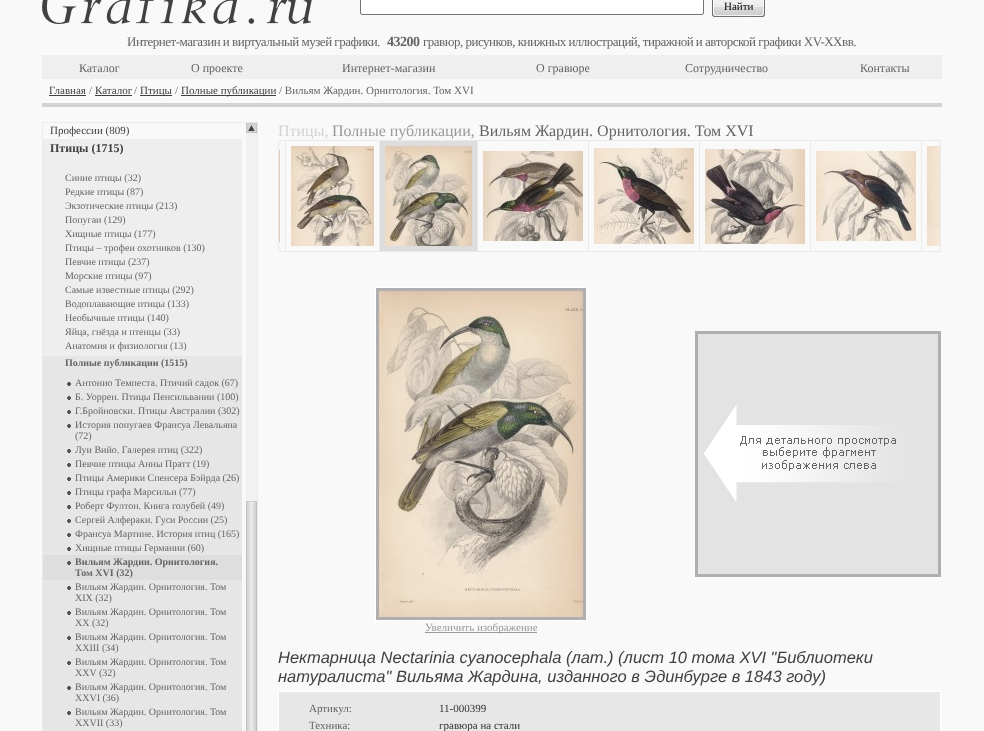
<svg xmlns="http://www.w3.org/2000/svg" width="984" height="731">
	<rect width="100%" height="100%" fill="#F9F9F9" />
	<image x="42" y="0" width="270" height="24" href="assets/img1.png" />
	<rect x="42" y="55" width="900" height="24" fill="#EFEFEF" />
	<rect x="360.5" y="-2.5" width="343" height="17" rx="1.5" fill="#FFFFFF" stroke="#767676" />
	<image x="712" y="0" width="53" height="17" href="assets/img2.png" />
	<text x="724" y="10" font-family="Liberation Serif" font-size="11" fill="#000000">Найти</text>
	<g font-family="Liberation Serif" font-size="12" fill="#646464">
		<text x="79" y="72">Каталог</text>
		<text x="191" y="72">О проекте</text>
		<text x="342" y="72">Интернет-магазин</text>
		<text x="536" y="72">О гравюре</text>
		<text x="685" y="72">Сотрудничество</text>
		<text x="860" y="72">Контакты</text>
	</g>
	<text x="127" y="46" font-family="Liberation Serif" font-size="13" letter-spacing="-0.5" fill="#646464">Интернет-магазин и виртуальный музей графики.</text>
	<text x="387" y="46" font-family="Liberation Serif" font-size="14" font-weight="700" letter-spacing="-0.5" fill="#646464">43200</text>
	<text x="423" y="46" font-family="Liberation Serif" font-size="13" letter-spacing="-0.5" fill="#646464">гравюр, рисунков, книжных иллюстраций, тиражной и авторской графики XV-XXвв.</text>
	<rect x="42" y="103" width="900" height="4" fill="#D3D3D3" />
	<text x="49" y="94" font-family="Liberation Serif" font-size="11" fill="#404040">Главная</text>
	<rect x="49" y="95" width="37" height="1" fill="#404040" />
	<text x="89" y="94" font-family="Liberation Serif" font-size="11" fill="#646464">/</text>
	<text x="95" y="94" font-family="Liberation Serif" font-size="11" fill="#404040">Каталог</text>
	<rect x="95" y="95" width="37" height="1" fill="#404040" />
	<text x="134" y="94" font-family="Liberation Serif" font-size="11" fill="#646464">/</text>
	<rect x="140" y="95" width="32" height="1" fill="#404040" />
	<text x="140" y="94" font-family="Liberation Serif" font-size="11" fill="#404040">Птицы</text>
	<text x="175" y="94" font-family="Liberation Serif" font-size="11" fill="#646464">/</text>
	<rect x="181" y="95" width="95" height="1" fill="#404040" />
	<text x="181" y="94" font-family="Liberation Serif" font-size="11" fill="#404040">Полные публикации</text>
	<text x="279" y="94" font-family="Liberation Serif" font-size="11" fill="#646464">/ Вильям Жардин. Орнитология. Том XVI</text>
	<rect x="42.5" y="122.5" width="215" height="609" fill="none" stroke="#EAEAEA" />
	<text x="50" y="134" font-family="Liberation Serif" font-size="11" fill="#404040">Профессии (809)</text>
	<rect x="43" y="139" width="199" height="217" fill="#EEEEEE" />
	<text x="50" y="152" font-family="Liberation Serif" font-size="12" font-weight="700" fill="#404040">Птицы (1715)</text>
	<g font-family="Liberation Serif" font-size="10" fill="#646464">
		<text x="65" y="181">Синие птицы (32)</text>
		<text x="65" y="195">Редкие птицы (87)</text>
		<text x="65" y="209">Экзотические птицы (213)</text>
		<text x="65" y="223">Попугаи (129)</text>
		<text x="65" y="237">Хищные птицы (177)</text>
		<text x="65" y="251">Птицы – трофеи охотников (130)</text>
		<text x="65" y="265">Певчие птицы (237)</text>
		<text x="65" y="279">Морские птицы (97)</text>
		<text x="65" y="293">Самые известные птицы (292)</text>
		<text x="65" y="307">Водоплавающие птицы (133)</text>
		<text x="65" y="321">Необычные птицы (140)</text>
		<text x="65" y="335">Яйца, гнёзда и птенцы (33)</text>
		<text x="65" y="349">Анатомия и физиология (13)</text>
	</g>
	<rect x="43" y="356" width="199" height="375" fill="#E6E6E6" />
	<text x="65" y="366" font-family="Liberation Serif" font-size="10" font-weight="700" fill="#646464">Полные публикации (1515)</text>
	<image x="67" y="382" width="4" height="4" href="assets/img3.png" />
	<text x="75" y="386" font-family="Liberation Serif" font-size="10" fill="#646464">Антонио Темпеста. Птичий садок (67)</text>
	<image x="67" y="396" width="4" height="4" href="assets/img3.png" />
	<text x="75" y="400" font-family="Liberation Serif" font-size="10" fill="#646464">Б. Уоррен. Птицы Пенсильвании (100)</text>
	<image x="67" y="410" width="4" height="4" href="assets/img3.png" />
	<text x="75" y="414" font-family="Liberation Serif" font-size="10" fill="#646464">Г.Бройновски. Птицы Австралии (302)</text>
	<image x="67" y="424" width="4" height="4" href="assets/img3.png" />
	<g font-family="Liberation Serif" font-size="10" fill="#646464">
		<text x="75" y="428">История попугаев Франсуа Левальяна</text>
		<text x="75" y="439">(72)</text>
	</g>
	<image x="67" y="449" width="4" height="4" href="assets/img3.png" />
	<text x="75" y="453" font-family="Liberation Serif" font-size="10" fill="#646464">Луи Вийо. Галерея птиц (322)</text>
	<image x="67" y="463" width="4" height="4" href="assets/img3.png" />
	<text x="75" y="467" font-family="Liberation Serif" font-size="10" fill="#646464">Певчие птицы Анны Пратт (19)</text>
	<image x="67" y="477" width="4" height="4" href="assets/img3.png" />
	<text x="75" y="481" font-family="Liberation Serif" font-size="10" fill="#646464">Птицы Америки Спенсера Бэйрда (26)</text>
	<image x="67" y="491" width="4" height="4" href="assets/img3.png" />
	<text x="75" y="495" font-family="Liberation Serif" font-size="10" fill="#646464">Птицы графа Марсильи (77)</text>
	<image x="67" y="505" width="4" height="4" href="assets/img3.png" />
	<text x="75" y="509" font-family="Liberation Serif" font-size="10" fill="#646464">Роберт Фултон. Книга голубей (49)</text>
	<image x="67" y="519" width="4" height="4" href="assets/img3.png" />
	<text x="75" y="523" font-family="Liberation Serif" font-size="10" fill="#646464">Сергей Алфераки. Гуси России (25)</text>
	<image x="67" y="533" width="4" height="4" href="assets/img3.png" />
	<text x="75" y="537" font-family="Liberation Serif" font-size="10" fill="#646464">Франсуа Мартине. История птиц (165)</text>
	<image x="67" y="547" width="4" height="4" href="assets/img3.png" />
	<text x="75" y="551" font-family="Liberation Serif" font-size="10" fill="#646464">Хищные птицы Германии (60)</text>
	<rect x="43" y="555" width="199" height="25" fill="#DEDEDE" />
	<image x="67" y="561" width="4" height="4" href="assets/img3.png" />
	<g font-family="Liberation Serif" font-size="10" font-weight="700" fill="#646464">
		<text x="75" y="565">Вильям Жардин. Орнитология.</text>
		<text x="75" y="576">Том XVI (32)</text>
	</g>
	<image x="67" y="586" width="4" height="4" href="assets/img3.png" />
	<g font-family="Liberation Serif" font-size="10" fill="#646464">
		<text x="75" y="590">Вильям Жардин. Орнитология. Том</text>
		<text x="75" y="601">XIX (32)</text>
	</g>
	<image x="67" y="611" width="4" height="4" href="assets/img3.png" />
	<g font-family="Liberation Serif" font-size="10" fill="#646464">
		<text x="75" y="615">Вильям Жардин. Орнитология. Том</text>
		<text x="75" y="626">XX (32)</text>
	</g>
	<image x="67" y="636" width="4" height="4" href="assets/img3.png" />
	<g font-family="Liberation Serif" font-size="10" fill="#646464">
		<text x="75" y="640">Вильям Жардин. Орнитология. Том</text>
		<text x="75" y="651">XXIII (34)</text>
	</g>
	<image x="67" y="661" width="4" height="4" href="assets/img3.png" />
	<g font-family="Liberation Serif" font-size="10" fill="#646464">
		<text x="75" y="665">Вильям Жардин. Орнитология. Том</text>
		<text x="75" y="676">XXV (32)</text>
	</g>
	<image x="67" y="686" width="4" height="4" href="assets/img3.png" />
	<g font-family="Liberation Serif" font-size="10" fill="#646464">
		<text x="75" y="690">Вильям Жардин. Орнитология. Том</text>
		<text x="75" y="701">XXVI (36)</text>
	</g>
	<image x="67" y="711" width="4" height="4" href="assets/img3.png" />
	<g font-family="Liberation Serif" font-size="10" fill="#646464">
		<text x="75" y="715">Вильям Жардин. Орнитология. Том</text>
		<text x="75" y="726">XXVII (33)</text>
	</g>
	<image x="246" y="123" width="11" height="10" href="assets/img4.png" />
	<rect x="246" y="133" width="11" height="368" fill="#F1F1F1" />
	<image x="246" y="503" width="11" height="228" href="assets/img5.png" />
	<image x="246" y="501" width="11" height="2" href="assets/img6.png" />
	<text x="278" y="136" font-family="Liberation Serif" font-size="16" fill="#D3D3D3">Птицы,</text>
	<text x="332" y="136" font-family="Liberation Serif" font-size="16" fill="#999999">Полные публикации,</text>
	<text x="479" y="136" font-family="Liberation Serif" font-size="16" fill="#646464">Вильям Жардин. Орнитология. Том XVI</text>
	<rect x="278.5" y="140.5" width="662" height="111" fill="none" stroke="#EAEAEA" />
	<image x="279" y="150" width="1" height="92" href="assets/img7.png" />
	<rect x="285" y="141" width="1" height="110" fill="#EAEAEA" />
	<image x="291" y="146" width="83" height="100" href="assets/img8.png" />
	<rect x="380" y="141" width="97" height="110" fill="#DDDDDD" />
	<rect x="379" y="141" width="1" height="110" fill="#EAEAEA" />
	<image x="385" y="146" width="87" height="100" href="assets/img9.png" />
	<rect x="477" y="141" width="1" height="110" fill="#EAEAEA" />
	<image x="483" y="151" width="100" height="90" href="assets/img10.png" />
	<rect x="588" y="141" width="1" height="110" fill="#EAEAEA" />
	<image x="594" y="148" width="100" height="96" href="assets/img11.png" />
	<rect x="699" y="141" width="1" height="110" fill="#EAEAEA" />
	<image x="705" y="149" width="100" height="95" href="assets/img12.png" />
	<rect x="810" y="141" width="1" height="110" fill="#EAEAEA" />
	<image x="816" y="151" width="100" height="90" href="assets/img13.png" />
	<rect x="921" y="141" width="1" height="110" fill="#EAEAEA" />
	<image x="927" y="146" width="13" height="100" href="assets/img14.png" />
	<rect x="375.5" y="287.5" width="211" height="333" fill="none" stroke="#FFFFFF" />
	<rect x="377.5" y="289.5" width="207" height="329" fill="none" stroke="#B0AEAF" stroke-width="3" />
	<image x="379" y="291" width="204" height="326" href="assets/img15.png" />
	<image x="698" y="334" width="240" height="240" href="assets/img16.png" />
	<rect x="696.5" y="332.5" width="243" height="243" fill="none" stroke="#B0AEAF" stroke-width="3" />
	<rect x="425" y="632" width="112" height="1" fill="#999999" />
	<text x="425" y="631" font-family="Liberation Serif" font-size="11" fill="#999999">Увеличить изображение</text>
	<g font-family="Liberation Sans" font-size="16.5" font-style="italic" fill="#404040">
		<text x="278" y="663">Нектарница Nectarinia cyanocephala (лат.) (лист 10 тома XVI "Библиотеки</text>
		<text x="278" y="682">натуралиста" Вильяма Жардина, изданного в Эдинбурге в 1843 году)</text>
	</g>
	<rect x="279" y="692" width="661" height="39" fill="#E7E7E7" />
	<rect x="278" y="691" width="663" height="1" fill="#FFFFFF" />
	<rect x="940" y="691" width="1" height="40" fill="#FFFFFF" />
	<rect x="278" y="691" width="1" height="40" fill="#FFFFFF" />
	<text x="309" y="712" font-family="Liberation Serif" font-size="11" fill="#646464">Артикул:</text>
	<text x="439" y="712" font-family="Liberation Serif" font-size="11" fill="#333333">11-000399</text>
	<text x="309" y="729" font-family="Liberation Serif" font-size="11" fill="#646464">Техника:</text>
	<text x="439" y="729" font-family="Liberation Serif" font-size="11" fill="#333333">гравюра на стали</text>
</svg>
